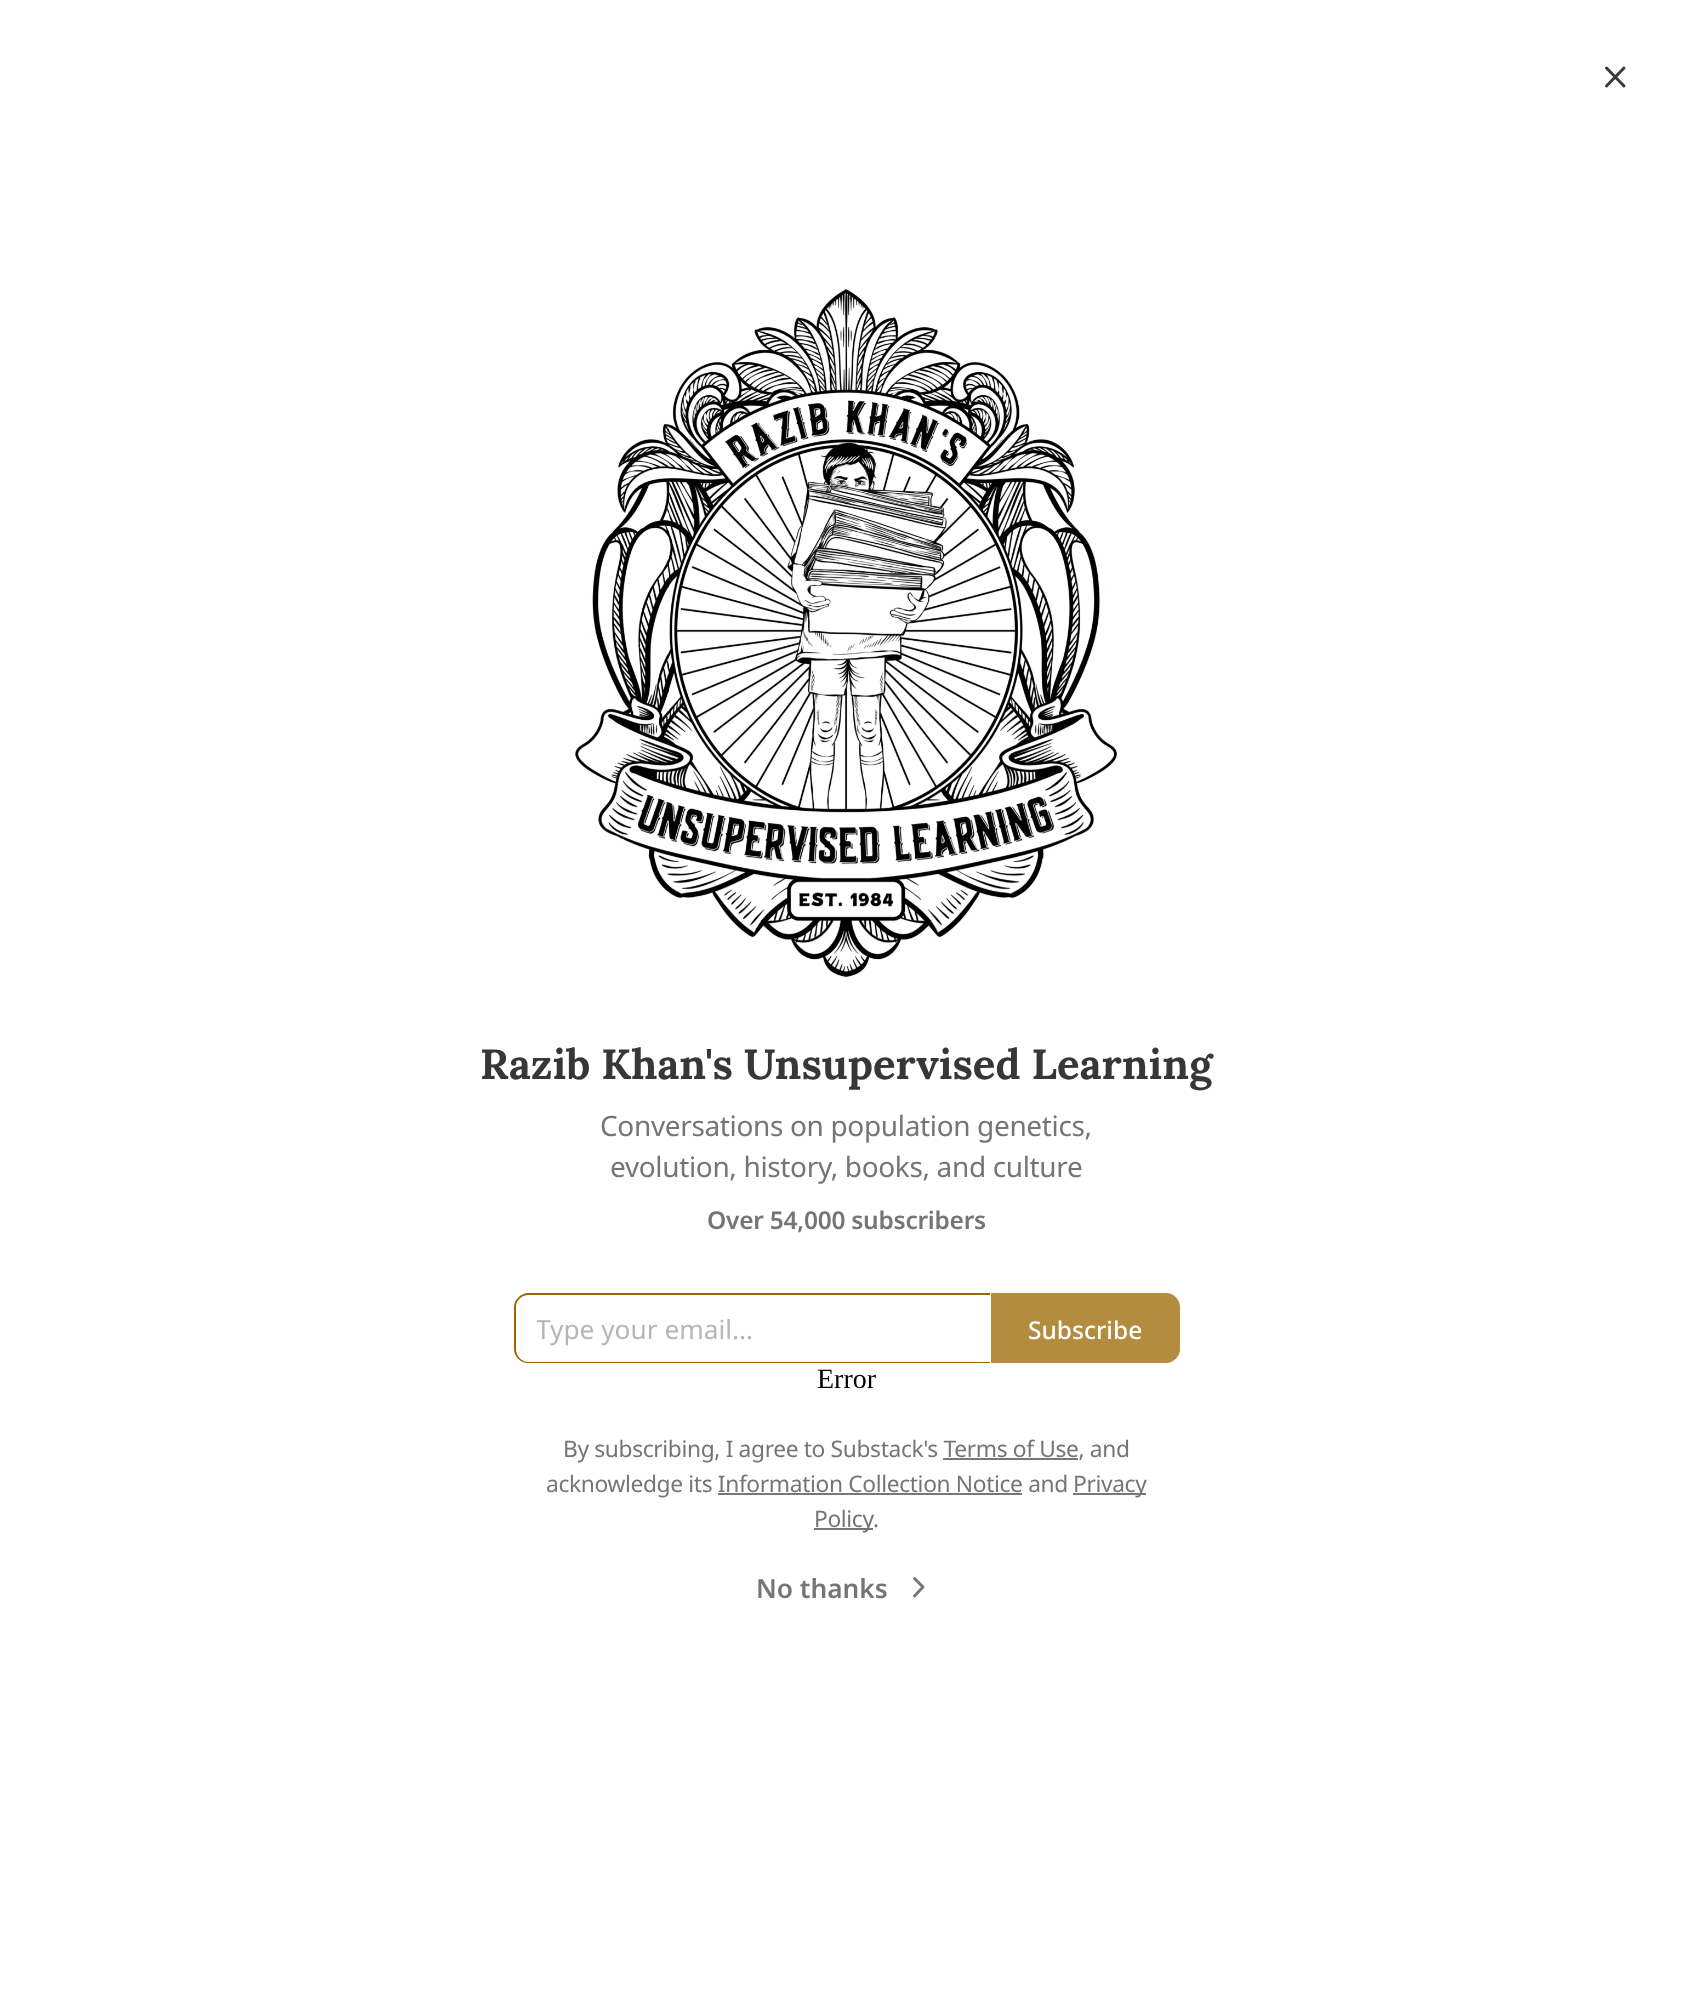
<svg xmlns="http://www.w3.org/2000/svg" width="1691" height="2004">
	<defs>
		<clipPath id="clip1"><rect x="537" y="1311" width="433" height="35" /></clipPath>
	</defs>
	<rect width="100%" height="100%" fill="#FFFFFF" />
	<path d="M1624 68L1606.5 86M1606.5 68L1624 86" fill="none" stroke="#363737" stroke-width="2.9" stroke-linecap="round" stroke-linejoin="round" />
	<image x="575" y="289" width="543" height="689" href="assets/img1.png" />
	<text x="480" y="1079" font-family="Lora" font-size="42" font-weight="700" fill="#363737">Razib Khan's Unsupervised Learning</text>
	<g font-family="Noto Sans" font-size="28" letter-spacing="-0.35" fill="#757575">
		<text x="600" y="1136">Conversations on population genetics,</text>
		<text x="610" y="1177">evolution, history, books, and culture</text>
	</g>
	<text x="707" y="1229" font-family="Noto Sans" font-size="24.5" font-weight="600" letter-spacing="-0.25" fill="#757575">Over 54,000 subscribers</text>
	<path d="M528 1293H990V1363H528C521 1363 514 1357 514 1349V1307C514 1300 521 1293 528 1293ZM528 1295H990V1362H528C522 1362 516 1356 516 1349V1307C516 1300 522 1295 528 1295Z" fill="#9A6600" fill-rule="evenodd" />
	<g clip-path="url(#clip1)">
		<text x="536" y="1339" font-family="Noto Sans" font-size="26.25" fill="#B6B6B6">Type your email...</text>
	</g>
	<path d="M992 1294H1166C1173 1294 1179 1300 1179 1307V1349C1179 1356 1173 1362 1166 1362H992Z" fill="#B38C40" stroke="#B38C40" stroke-width="2" />
	<text x="1028" y="1339" font-family="Noto Sans" font-size="24.5" font-weight="500" fill="#FFFFFF">Subscribe</text>
	<text x="817" y="1388" font-family="Liberation Serif" font-size="28" fill="#000000">Error</text>
	<text x="563" y="1457" font-family="Noto Sans" font-size="22.75" letter-spacing="-0.35" fill="#757575">By subscribing, I agree to Substack's Terms of Use, and</text>
	<rect x="943" y="1458" width="135" height="2" fill="#777777" />
	<text x="546" y="1492" font-family="Noto Sans" font-size="22.75" letter-spacing="-0.35" fill="#757575">acknowledge its Information Collection Notice and</text>
	<rect x="1073" y="1493" width="73" height="2" fill="#777777" />
	<text x="1073" y="1492" font-family="Noto Sans" font-size="22.75" letter-spacing="-0.35" fill="#757575">Privacy</text>
	<rect x="718" y="1493" width="304" height="2" fill="#777777" />
	<rect x="814" y="1528" width="59" height="2" fill="#777777" />
	<g font-family="Noto Sans" font-size="22.75" letter-spacing="-0.35" fill="#757575">
		<text x="814" y="1527">Policy</text>
		<text x="873" y="1527">.</text>
	</g>
	<text x="756" y="1598" font-family="Noto Sans" font-size="26.25" font-weight="600" fill="#757575">No thanks</text>
	<path d="M914.5 1596L923 1587L914.5 1578.5" fill="none" stroke="#757575" stroke-width="2.9" stroke-linecap="round" stroke-linejoin="round" />
</svg>
